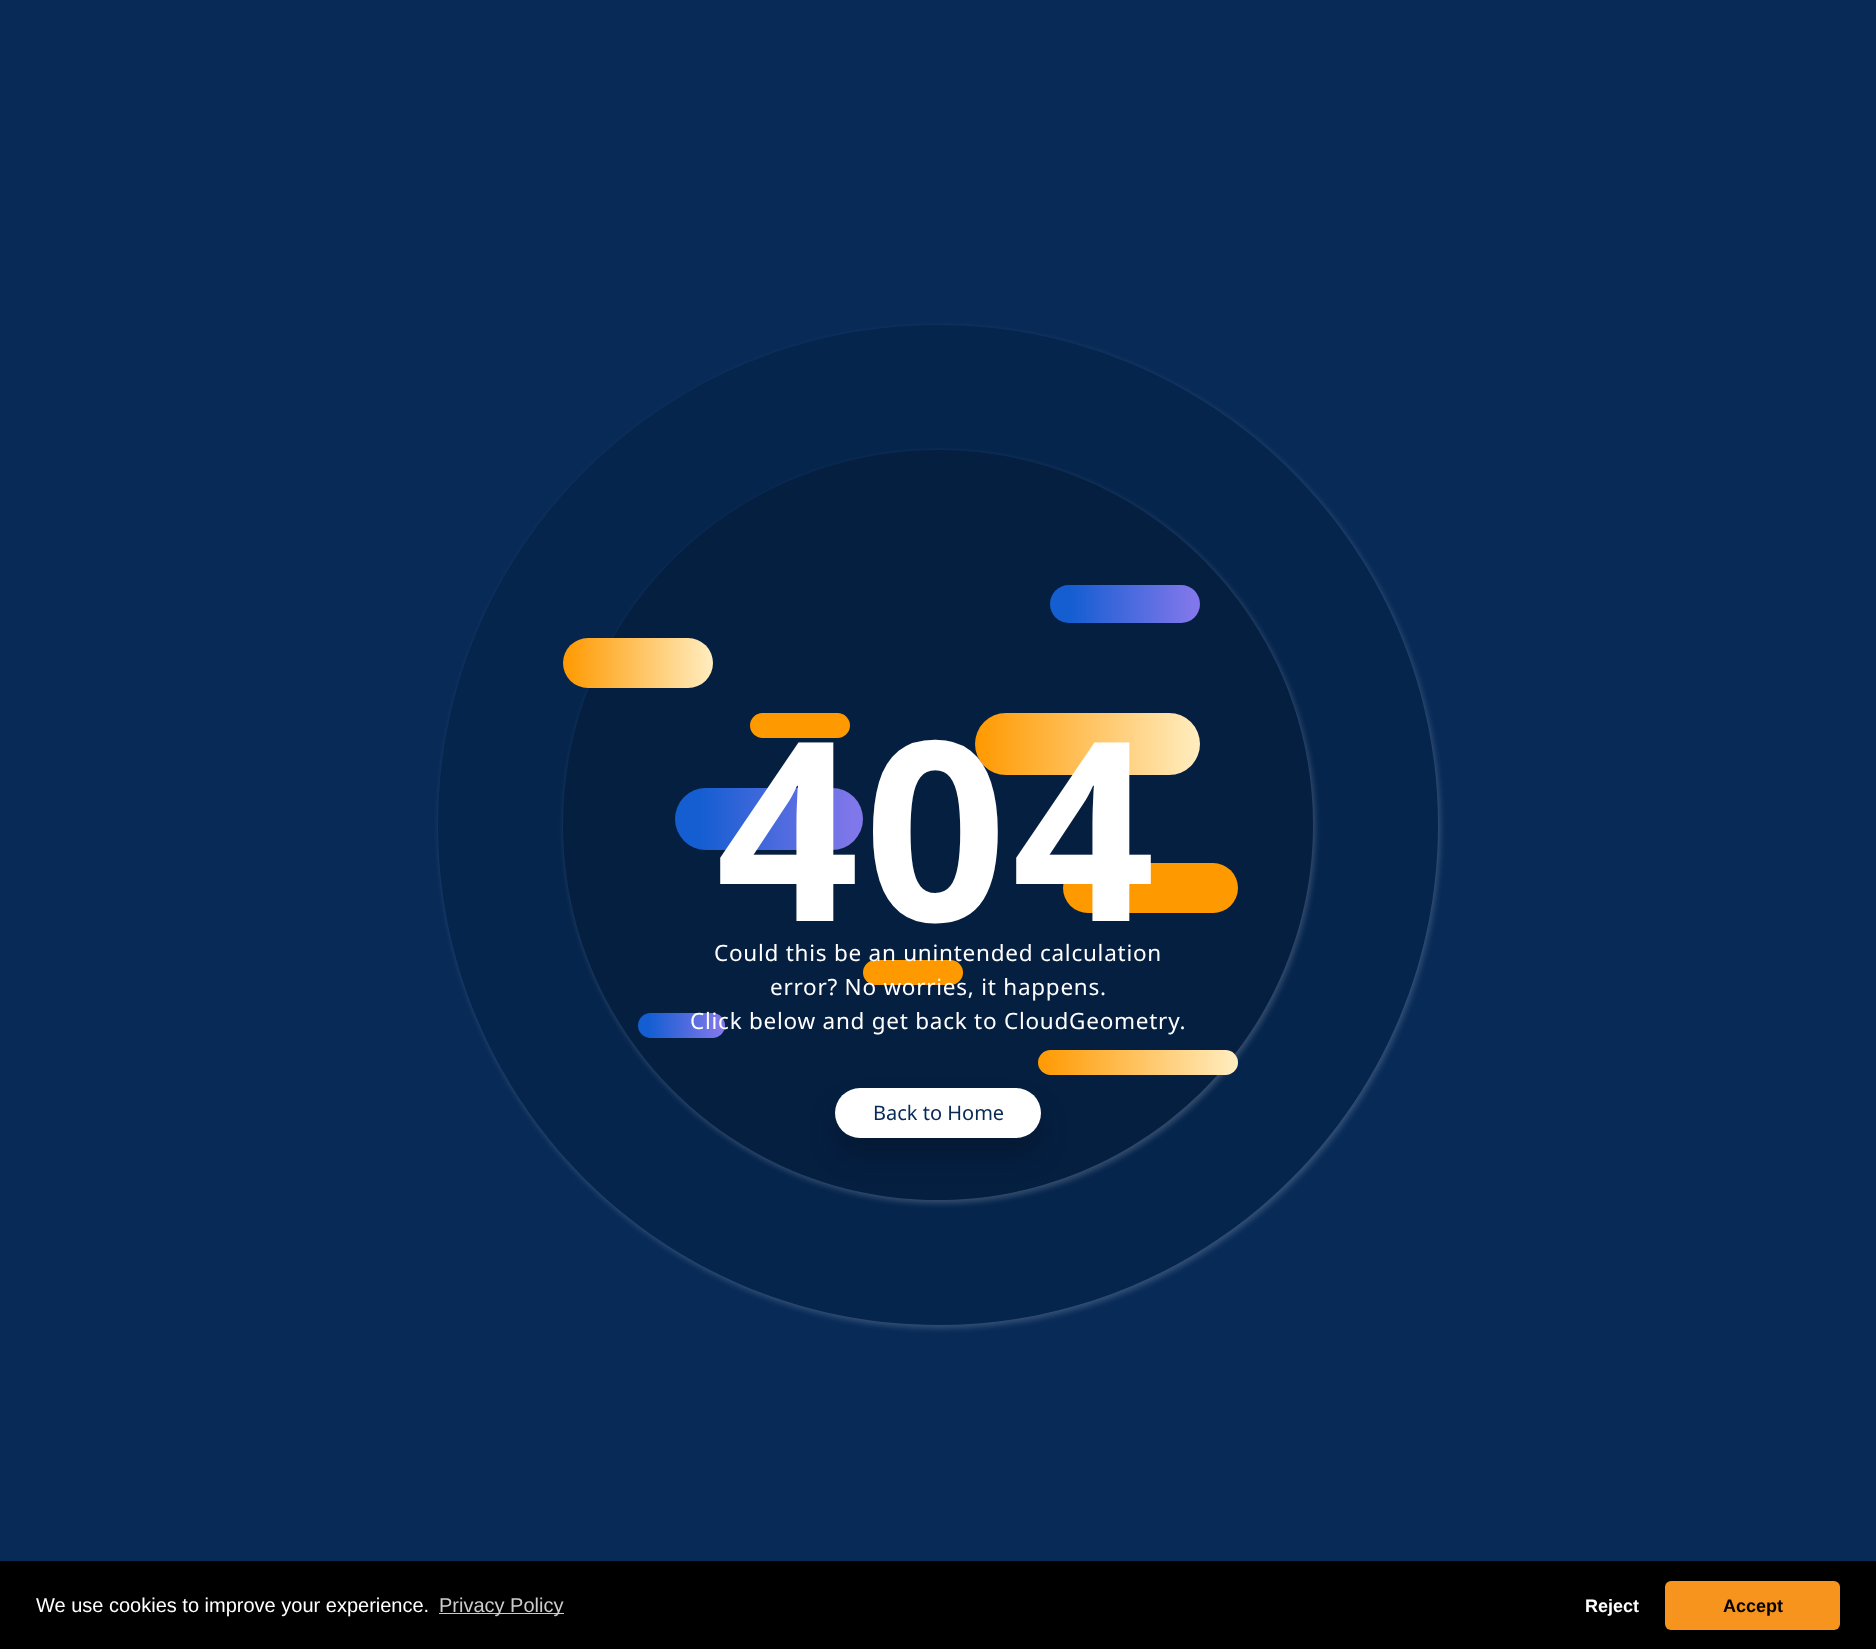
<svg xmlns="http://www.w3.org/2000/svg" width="1876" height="1649">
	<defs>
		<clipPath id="clip1"><path d="M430 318H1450V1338H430ZM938 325C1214 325 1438 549 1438 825C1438 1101 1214 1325 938 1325C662 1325 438 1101 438 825C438 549 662 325 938 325Z" clip-rule="evenodd" /></clipPath>
		<clipPath id="clip2"><path d="M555 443H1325V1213H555ZM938 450C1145 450 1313 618 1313 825C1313 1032 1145 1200 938 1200C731 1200 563 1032 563 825C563 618 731 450 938 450Z" clip-rule="evenodd" /></clipPath>
		<linearGradient id="g1" gradientUnits="userSpaceOnUse" x1="1050" y1="604" x2="1200" y2="604"><stop offset="0.14" stop-color="#155ED2" /><stop offset="0.95" stop-color="#8077EA" /></linearGradient>
		<linearGradient id="g2" gradientUnits="userSpaceOnUse" x1="675" y1="819" x2="863" y2="819"><stop offset="0.14" stop-color="#155ED2" /><stop offset="0.95" stop-color="#8077EA" /></linearGradient>
		<linearGradient id="g3" gradientUnits="userSpaceOnUse" x1="637" y1="1025" x2="725" y2="1025"><stop offset="0.14" stop-color="#155ED2" /><stop offset="0.95" stop-color="#8077EA" /></linearGradient>
		<linearGradient id="g4" gradientUnits="userSpaceOnUse" x1="563" y1="662" x2="713" y2="662"><stop offset="0" stop-color="#FF9900" /><stop offset="1" stop-color="#FFEDC0" /></linearGradient>
		<linearGradient id="g5" gradientUnits="userSpaceOnUse" x1="975" y1="744" x2="1200" y2="744"><stop offset="0" stop-color="#FF9900" /><stop offset="1" stop-color="#FFEDC0" /></linearGradient>
		<linearGradient id="g6" gradientUnits="userSpaceOnUse" x1="1037" y1="1063" x2="1237" y2="1063"><stop offset="0" stop-color="#FF9900" /><stop offset="1" stop-color="#FFEDC0" /></linearGradient>
	</defs>
	<rect width="100%" height="100%" fill="#072A57" />
	<g clip-path="url(#clip1)">
		<rect x="440" y="328" width="1000" height="1000" rx="500" fill="#FFFFFF" fill-opacity="0.2" filter="blur(3px)" />
	</g>
	<circle cx="938" cy="825" r="500" fill="#031328" fill-opacity="0.2" />
	<g clip-path="url(#clip2)">
		<rect x="565" y="453" width="750" height="750" rx="375" fill="#FFFFFF" fill-opacity="0.2" filter="blur(3px)" />
	</g>
	<circle cx="938" cy="825" r="375" fill="#031328" fill-opacity="0.3" />
	<rect x="1050" y="585" width="150" height="38" rx="19" fill="url(#g1)" />
	<rect x="675" y="788" width="188" height="62" rx="31" fill="url(#g2)" />
	<rect x="638" y="1013" width="87" height="25" rx="12.5" fill="url(#g3)" />
	<rect x="563" y="638" width="150" height="50" rx="25" fill="url(#g4)" />
	<rect x="975" y="713" width="225" height="62" rx="31" fill="url(#g5)" />
	<rect x="1038" y="1050" width="200" height="25" rx="12.5" fill="url(#g6)" />
	<rect x="750" y="713" width="100" height="25" rx="12.5" fill="#FF9900" />
	<rect x="1063" y="863" width="175" height="50" rx="25" fill="#FF9900" />
	<rect x="863" y="960" width="100" height="25" rx="12.5" fill="#FF9900" />
	<text x="716" y="921" font-family="Noto Sans" font-size="250" font-weight="700" letter-spacing="5" fill="#FFFFFF">404</text>
	<g font-family="Noto Sans" font-size="22.5" letter-spacing="0.75" fill="#FFFFFF">
		<text x="714" y="961">Could this be an unintended calculation</text>
		<text x="770" y="995">error? No worries, it happens.</text>
		<text x="690" y="1029">Click below and get back to CloudGeometry.</text>
	</g>
	<rect x="835" y="1106" width="206" height="50" rx="25" fill="#031328" fill-opacity="0.5" filter="blur(12.5px)" />
	<rect x="835" y="1088" width="206" height="50" rx="25" fill="#FFFFFF" />
	<text x="873" y="1120" font-family="Noto Sans" font-size="20" fill="#072A57">Back to Home</text>
	<rect x="0" y="1561" width="1876" height="88" fill="#000000" />
	<text x="36" y="1612" font-family="Liberation Sans" font-size="20" fill="#FFFFFF">We use cookies to improve your experience.</text>
	<rect x="439" y="1613" width="125" height="1" fill="#CCCCCC" />
	<text x="439" y="1612" font-family="Liberation Sans" font-size="20" fill="#CCCCCC">Privacy Policy</text>
	<text x="1585" y="1612" font-family="Liberation Sans" font-size="18" font-weight="700" fill="#FFFFFF">Reject</text>
	<rect x="1665" y="1581" width="175" height="49" rx="6" fill="#F7941D" />
	<text x="1723" y="1612" font-family="Liberation Sans" font-size="18" font-weight="700" fill="#000000">Accept</text>
</svg>
